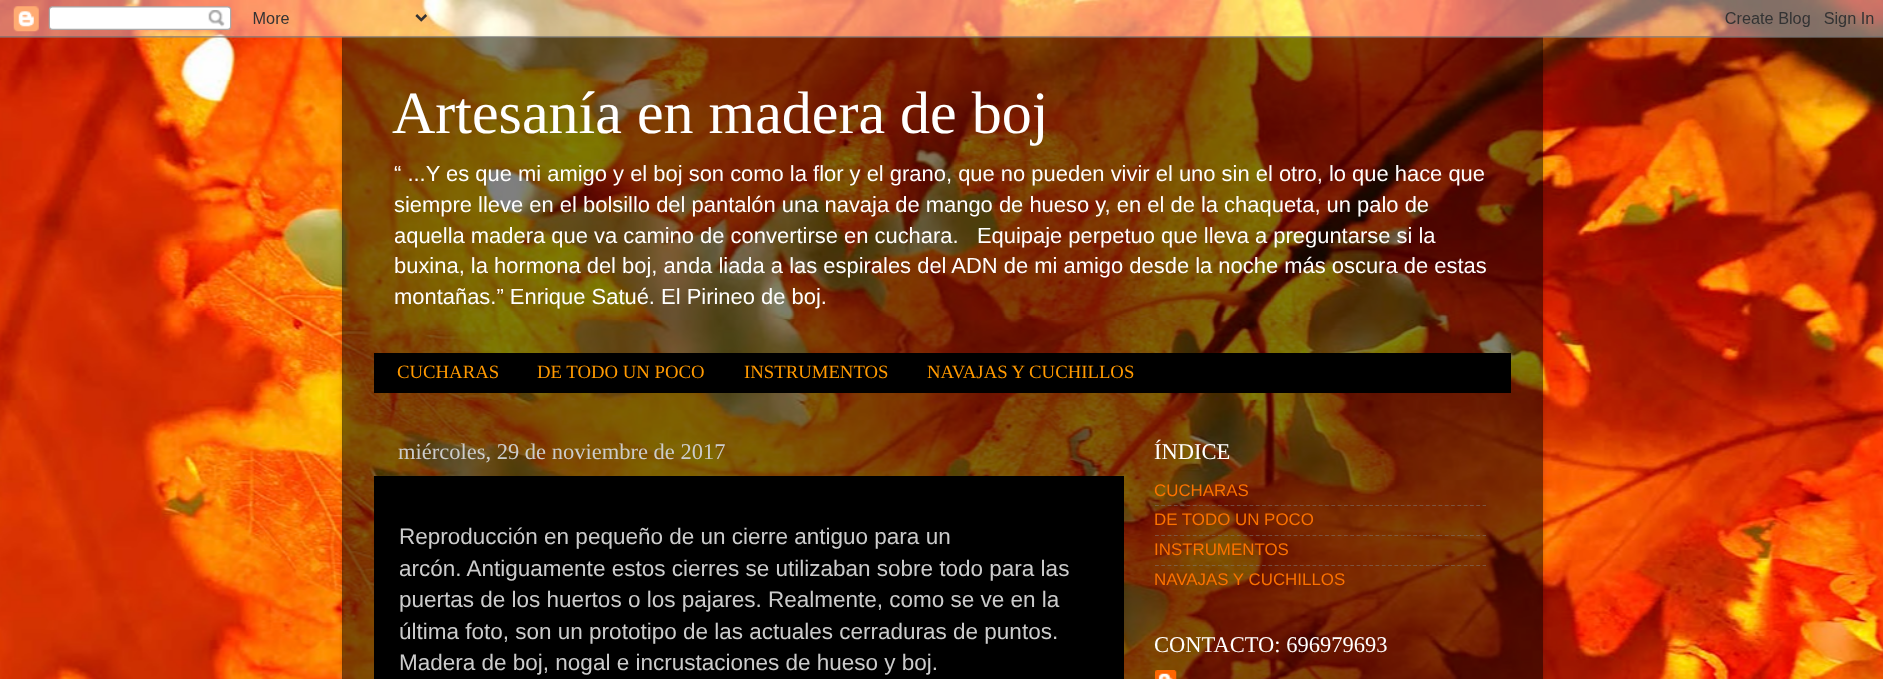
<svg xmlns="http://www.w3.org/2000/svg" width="1883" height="679">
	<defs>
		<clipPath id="clip1"><path d="M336 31H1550V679H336ZM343 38H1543V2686H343Z" clip-rule="evenodd" /></clipPath>
	</defs>
	<rect width="100%" height="100%" fill="#FFFFFF" />
	<image x="0" y="0" width="1883" height="679" href="assets/img1.png" />
	<g clip-path="url(#clip1)">
		<rect x="343" y="38" width="1200" height="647" fill="#000000" fill-opacity="0.15" filter="blur(2px)" />
	</g>
	<rect x="342" y="37" width="1201" height="642" fill="#000000" fill-opacity="0.5" />
	<image x="0" y="0" width="1883" height="38" href="assets/img2.png" />
	<text x="392" y="133" font-family="Liberation Serif" font-size="60" fill="#FFFFFF">Artesanía en madera de boj</text>
	<g font-family="Liberation Sans" font-size="21.95" fill="#FFFFFF">
		<text x="394" y="181">“ ...Y es que mi amigo y el boj son como la flor y el grano, que no pueden vivir el uno sin el otro, lo que hace que</text>
		<text x="394" y="212">siempre lleve en el bolsillo del pantalón una navaja de mango de hueso y, en el de la chaqueta, un palo de</text>
		<text x="394" y="243" xml:space="preserve">aquella madera que va camino de convertirse en cuchara.   Equipaje perpetuo que lleva a preguntarse si la</text>
		<text x="394" y="273">buxina, la hormona del boj, anda liada a las espirales del ADN de mi amigo desde la noche más oscura de estas</text>
		<text x="394" y="304">montañas.” Enrique Satué. El Pirineo de boj.</text>
	</g>
	<rect x="374" y="353" width="1137" height="40" fill="#000000" />
	<g font-family="Liberation Serif" font-size="18.75" fill="#FF9900">
		<text x="397" y="378">CUCHARAS</text>
		<text x="537" y="378">DE TODO UN POCO</text>
		<text x="744" y="378">INSTRUMENTOS</text>
		<text x="927" y="378">NAVAJAS Y CUCHILLOS</text>
	</g>
	<text x="398" y="459" font-family="Liberation Serif" font-size="22.5" fill="#CCCCCC">miércoles, 29 de noviembre de 2017</text>
	<rect x="374" y="476" width="750" height="203" fill="#000000" />
	<g font-family="Liberation Sans" font-size="22.5" fill="#CCCCCC">
		<text x="399" y="544">Reproducción en pequeño de un cierre antiguo para un</text>
		<text x="399" y="576">arcón. Antiguamente estos cierres se utilizaban sobre todo para las</text>
		<text x="399" y="607">puertas de los huertos o los pajares. Realmente, como se ve en la</text>
		<text x="399" y="639">última foto, son un prototipo de las actuales cerraduras de puntos.</text>
		<text x="399" y="670">Madera de boj, nogal e incrustaciones de hueso y boj.</text>
	</g>
	<text x="1154" y="459" font-family="Liberation Serif" font-size="22.5" fill="#FFFFFF">ÍNDICE</text>
	<text x="1154" y="496" font-family="Liberation Sans" font-size="16.9" fill="#FC7200">CUCHARAS</text>
	<path d="M1155 505.5H1486" fill="none" stroke="#808080" stroke-opacity="0.5" stroke-width="1.2" stroke-dasharray="3.75 2.55" />
	<text x="1154" y="525" font-family="Liberation Sans" font-size="16.9" fill="#FC7200">DE TODO UN POCO</text>
	<path d="M1155 535.5H1486" fill="none" stroke="#808080" stroke-opacity="0.5" stroke-width="1.2" stroke-dasharray="3.75 2.55" />
	<text x="1154" y="555" font-family="Liberation Sans" font-size="16.9" fill="#FC7200">INSTRUMENTOS</text>
	<path d="M1155 565.5H1486" fill="none" stroke="#808080" stroke-opacity="0.5" stroke-width="1.2" stroke-dasharray="3.75 2.55" />
	<text x="1154" y="585" font-family="Liberation Sans" font-size="16.9" fill="#FC7200">NAVAJAS Y CUCHILLOS</text>
	<text x="1154" y="652" font-family="Liberation Serif" font-size="22.5" fill="#FFFFFF">CONTACTO: 696979693</text>
	<image x="1155" y="670" width="22" height="9" href="assets/img3.png" />
</svg>
